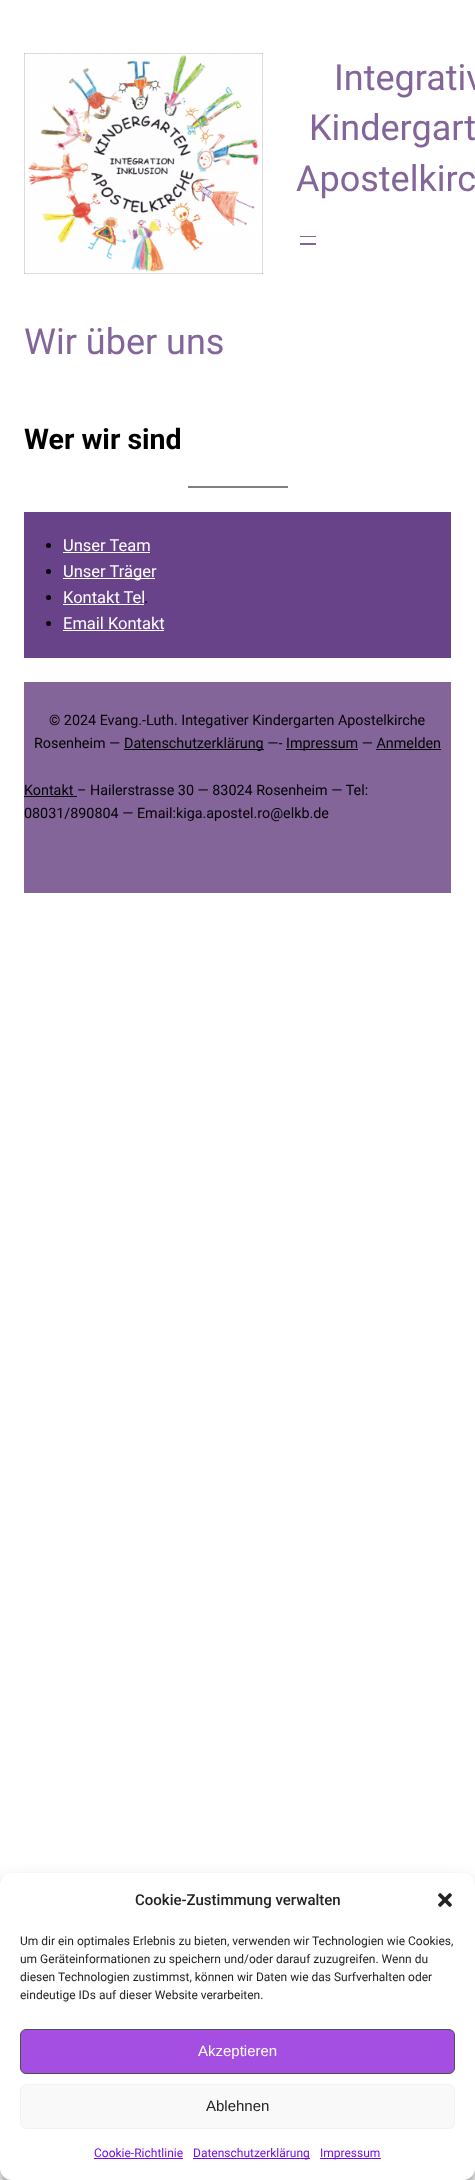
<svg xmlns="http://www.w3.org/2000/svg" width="475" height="2180">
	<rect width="100%" height="100%" fill="#FFFFFF" />
	<image x="24" y="53" width="239" height="221" href="assets/img1.png" />
	<g font-family="Roboto" font-size="36" fill="#84659A">
		<text x="334" y="90">Integrativ</text>
		<text x="309" y="140">Kindergart</text>
		<text x="296" y="191">Apostelkirc</text>
	</g>
	<rect x="300" y="236" width="16" height="1" fill="#84659A" />
	<rect x="300" y="243" width="16" height="2" fill="#84659A" />
	<text x="24" y="354" font-family="Roboto" font-size="36" fill="#84659A">Wir über uns</text>
	<text x="24" y="449" font-family="Roboto" font-size="28.5" font-weight="700" fill="#000000">Wer wir sind</text>
	<rect x="188" y="486" width="100" height="2" fill="#808080" />
	<rect x="24" y="512" width="427" height="146" fill="#694389" />
	<circle cx="48.5" cy="545.5" r="2.5" fill="#000000" />
	<text x="63" y="551" font-family="Roboto" font-size="16.5" fill="#FFFFFF">Unser Team</text>
	<rect x="63" y="552" width="87" height="1" fill="#FFFFFF" />
	<circle cx="48.5" cy="571.5" r="2.5" fill="#000000" />
	<rect x="63" y="578" width="92" height="1" fill="#FFFFFF" />
	<text x="63" y="577" font-family="Roboto" font-size="16.5" fill="#FFFFFF">Unser Träger</text>
	<circle cx="48.5" cy="597.5" r="2.5" fill="#000000" />
	<text x="63" y="603" font-family="Roboto" font-size="16.5" fill="#FFFFFF">Kontakt Tel</text>
	<rect x="63" y="604" width="81" height="1" fill="#FFFFFF" />
	<text x="144" y="603" font-family="Roboto" font-size="16.5" fill="#000000">.</text>
	<circle cx="48.5" cy="623.5" r="2.5" fill="#000000" />
	<text x="63" y="629" font-family="Roboto" font-size="16.5" fill="#FFFFFF">Email Kontakt</text>
	<rect x="63" y="630" width="101" height="1" fill="#FFFFFF" />
	<rect x="24" y="682" width="427" height="211" fill="#84659A" />
	<g font-family="Roboto" font-size="14.35" fill="#000000">
		<text x="49" y="725">© 2024 Evang.-Luth. Integativer Kindergarten Apostelkirche</text>
		<text x="34" y="748">Rosenheim —</text>
	</g>
	<rect x="124" y="749" width="140" height="1" fill="#000000" />
	<text x="124" y="748" font-family="Roboto" font-size="14.35" fill="#000000">Datenschutzerklärung —-</text>
	<rect x="286" y="749" width="72" height="1" fill="#000000" />
	<text x="286" y="748" font-family="Roboto" font-size="14.35" fill="#000000">Impressum — Anmelden</text>
	<rect x="376" y="749" width="65" height="1" fill="#000000" />
	<text x="24" y="795" font-family="Roboto" font-size="14.35" fill="#000000">Kontakt – Hailerstrasse 30 — 83024 Rosenheim — Tel:</text>
	<rect x="24" y="796" width="53" height="1" fill="#000000" />
	<text x="24" y="818" font-family="Roboto" font-size="14.35" fill="#000000">08031/890804 — Email:kiga.apostel.ro@elkb.de</text>
	<rect x="0" y="1879" width="475" height="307" rx="12" fill="#000000" fill-opacity="0.23" filter="blur(3px)" />
	<rect x="0" y="1883" width="475" height="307" rx="12" fill="#000000" fill-opacity="0.19" filter="blur(10px)" />
	<rect x="0" y="1873" width="475" height="307" rx="12" fill="#FFFFFF" />
	<text x="135" y="1905" font-family="Roboto" font-size="15" font-weight="500" fill="#222222">Cookie-Zustimmung verwalten</text>
	<image x="438" y="1893" width="14" height="14" href="assets/img2.png" />
	<g font-family="Roboto" font-size="12" fill="#222222">
		<text x="20" y="1945">Um dir ein optimales Erlebnis zu bieten, verwenden wir Technologien wie Cookies,</text>
		<text x="20" y="1963">um Geräteinformationen zu speichern und/oder darauf zuzugreifen. Wenn du</text>
		<text x="20" y="1981">diesen Technologien zustimmst, können wir Daten wie das Surfverhalten oder</text>
		<text x="20" y="1999">eindeutige IDs auf dieser Website verarbeiten.</text>
	</g>
	<rect x="20.5" y="2029.5" width="434" height="44" rx="5.5" fill="#A54FE2" stroke="#4F4F4F" />
	<text x="198" y="2056" font-family="Liberation Sans" font-size="15" fill="#FFFFFF">Akzeptieren</text>
	<rect x="20.5" y="2084.5" width="434" height="44" rx="5.5" fill="#F9F9F9" stroke="#F2F2F2" />
	<text x="206" y="2111" font-family="Liberation Sans" font-size="15" fill="#222222">Ablehnen</text>
	<text x="94" y="2157" font-family="Roboto" font-size="12" fill="#770BE2">Cookie-Richtlinie</text>
	<rect x="94" y="2158" width="89" height="1" fill="#770BE2" />
	<rect x="193" y="2158" width="117" height="1" fill="#770BE2" />
	<text x="193" y="2157" font-family="Roboto" font-size="12" fill="#770BE2">Datenschutzerklärung</text>
	<rect x="320" y="2158" width="61" height="1" fill="#770BE2" />
	<text x="320" y="2157" font-family="Roboto" font-size="12" fill="#770BE2">Impressum</text>
</svg>
